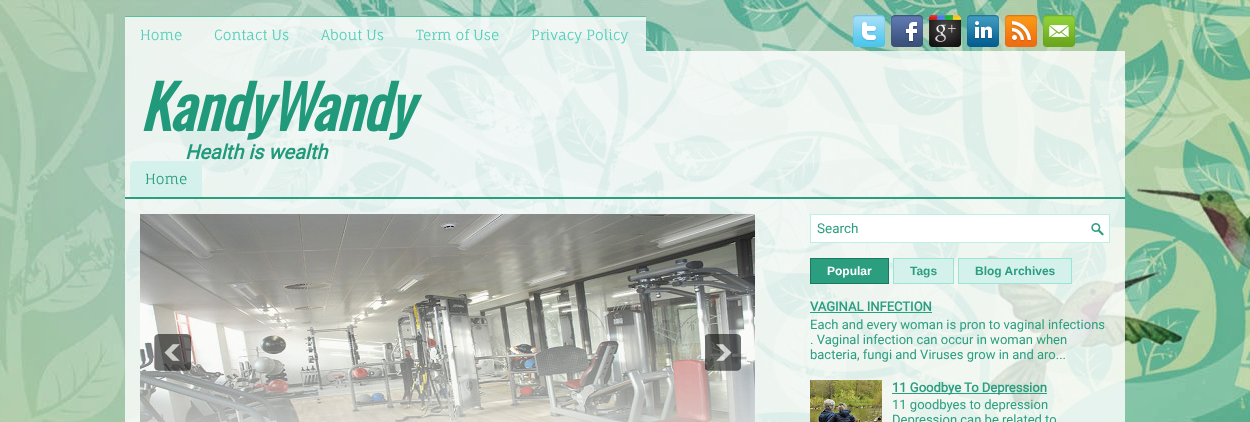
<svg xmlns="http://www.w3.org/2000/svg" width="1250" height="422">
	<rect width="100%" height="100%" fill="#FFFFFF" />
	<image x="0" y="0" width="1250" height="422" href="assets/img1.png" />
	<rect x="125" y="17" width="521" height="34" fill="#FFFFFF" fill-opacity="0.8" />
	<rect x="125" y="16" width="521" height="1" fill="#56C1A0" />
	<g font-family="Fauna One" font-size="14" fill="#57CFBB">
		<text x="140" y="40">Home</text>
		<text x="214" y="40">Contact Us</text>
		<text x="321" y="40">About Us</text>
		<text x="416" y="40">Term of Use</text>
		<text x="531" y="40">Privacy Policy</text>
	</g>
	<image x="853" y="15" width="32" height="32" href="assets/img2.png" />
	<image x="891" y="15" width="32" height="32" href="assets/img3.png" />
	<image x="929" y="15" width="32" height="32" href="assets/img4.png" />
	<image x="967" y="15" width="32" height="32" href="assets/img5.png" />
	<image x="1005" y="15" width="32" height="32" href="assets/img6.png" />
	<image x="1043" y="15" width="32" height="32" href="assets/img7.png" />
	<rect x="125" y="51" width="1000" height="110" fill="#FFFFFF" fill-opacity="0.8" />
	<text x="140" y="131" font-family="Oswald" font-size="60" font-weight="700" font-style="italic" fill="#209A7A">KandyWandy</text>
	<text x="185" y="159" font-family="Roboto" font-size="20" font-weight="700" font-style="italic" fill="#209A7A">Health is wealth</text>
	<rect x="125" y="161" width="1000" height="36" fill="#FFFFFF" fill-opacity="0.8" />
	<rect x="125" y="197" width="1000" height="2" fill="#2B9E80" />
	<path d="M135 161H197C200 161 202 163 202 166V197H130V166C130 163 132 161 135 161Z" fill="#D4F1EB" />
	<text x="145" y="184" font-family="Fauna One" font-size="14" fill="#2C9E80">Home</text>
	<rect x="125" y="199" width="1000" height="223" fill="#FFFFFF" fill-opacity="0.8" />
	<image x="140" y="214" width="615" height="208" href="assets/img8.png" />
	<image x="154" y="334" width="37" height="37" href="assets/img9.png" />
	<image x="705" y="334" width="36" height="37" href="assets/img10.png" />
	<rect x="811" y="215" width="298" height="27" fill="#FFFFFF" />
	<image x="1091" y="223" width="13" height="13" href="assets/img11.png" />
	<rect x="810.5" y="214.5" width="299" height="28" fill="none" stroke="#BEEEE4" />
	<text x="817" y="233" font-family="Roboto" font-size="13.5" fill="#2C9E80">Search</text>
	<rect x="810.5" y="258.5" width="78" height="25" fill="#2C9E80" stroke="#197A61" />
	<text x="827" y="275" font-family="Liberation Sans" font-size="12" font-weight="700" fill="#FFFFFF">Popular</text>
	<rect x="893.5" y="258.5" width="60" height="25" fill="#D4F1EB" stroke="#9AE6D6" />
	<text x="910" y="275" font-family="Liberation Sans" font-size="12" font-weight="700" fill="#2C9E80">Tags</text>
	<rect x="958.5" y="258.5" width="113" height="25" fill="#D4F1EB" stroke="#9AE6D6" />
	<text x="975" y="275" font-family="Liberation Sans" font-size="12" font-weight="700" fill="#2C9E80">Blog Archives</text>
	<text x="810" y="311" font-family="Roboto" font-size="13" font-weight="700" fill="#2C9E80">VAGINAL INFECTION</text>
	<rect x="810" y="312" width="122" height="1" fill="#2C9E80" />
	<g font-family="Roboto" font-size="13" fill="#2C9E80">
		<text x="810" y="329">Each and every woman is pron to vaginal infections</text>
		<text x="810" y="344">. Vaginal infection can occur in woman when</text>
		<text x="810" y="359">bacteria, fungi and Viruses grow in and aro...</text>
	</g>
	<image x="810" y="380" width="72" height="42" href="assets/img12.png" />
	<rect x="892" y="393" width="155" height="1" fill="#2C9E80" />
	<text x="892" y="392" font-family="Roboto" font-size="13" font-weight="700" fill="#2C9E80">11 Goodbye To Depression</text>
	<g font-family="Roboto" font-size="13" fill="#2C9E80">
		<text x="892" y="409">11 goodbyes to depression</text>
		<text x="892" y="424">Depression can be related to</text>
	</g>
</svg>
